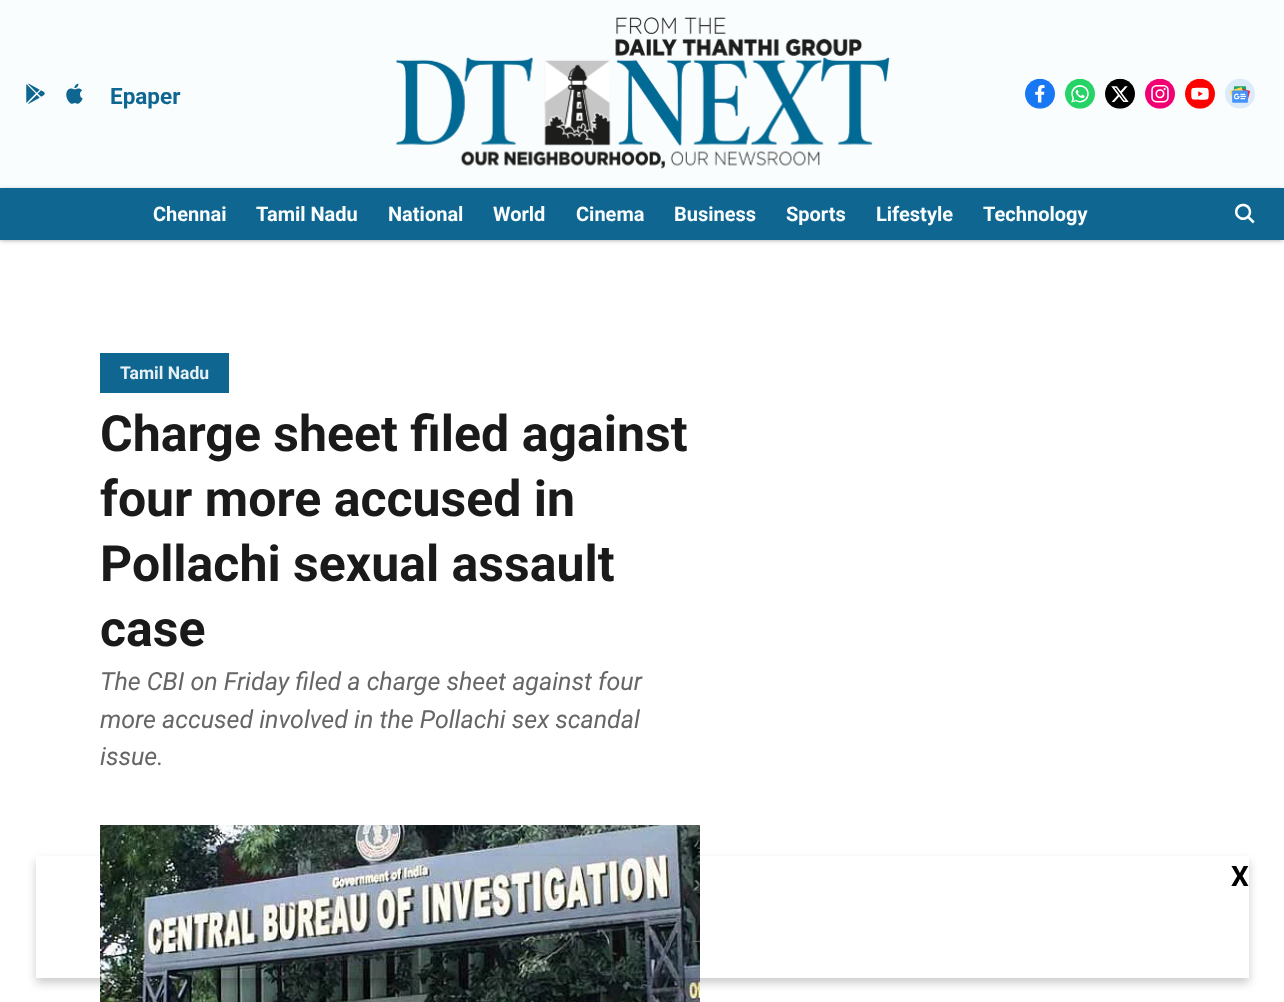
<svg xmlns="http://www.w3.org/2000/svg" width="1284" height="1002">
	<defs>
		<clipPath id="clip1"><path d="M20 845H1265V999H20ZM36 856H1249V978H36Z" clip-rule="evenodd" /></clipPath>
	</defs>
	<rect width="100%" height="100%" fill="#FFFFFF" />
	<rect x="0" y="0" width="1284" height="188" fill="#FAFDFE" />
	<image x="26" y="83" width="19" height="21" href="assets/img1.png" />
	<image x="66" y="83" width="17" height="21" href="assets/img2.png" />
	<text x="110" y="104" font-family="Roboto" font-size="22.5" font-weight="700" fill="#0F6690">Epaper</text>
	<image x="396" y="17" width="494" height="152" href="assets/img3.png" />
	<image x="1025" y="78" width="30" height="31" href="assets/img4.png" />
	<image x="1065" y="78" width="30" height="31" href="assets/img5.png" />
	<image x="1105" y="78" width="30" height="31" href="assets/img6.png" />
	<image x="1145" y="78" width="30" height="31" href="assets/img7.png" />
	<image x="1185" y="78" width="30" height="31" href="assets/img8.png" />
	<image x="1225" y="79" width="30" height="30" href="assets/img9.png" />
	<rect x="0" y="190" width="1283" height="50" fill="#000000" fill-opacity="0.39" filter="blur(2.5px)" />
	<rect x="0" y="188" width="1284" height="52" fill="#0F6690" />
	<g font-family="Roboto" font-size="20" font-weight="700" fill="#FAFDFE">
		<text x="153" y="221">Chennai</text>
		<text x="256" y="221">Tamil Nadu</text>
		<text x="388" y="221">National</text>
		<text x="493" y="221">World</text>
		<text x="576" y="221">Cinema</text>
		<text x="674" y="221">Business</text>
		<text x="786" y="221">Sports</text>
		<text x="876" y="221">Lifestyle</text>
		<text x="983" y="221">Technology</text>
	</g>
	<image x="1234" y="203" width="21" height="21" href="assets/img10.png" />
	<rect x="100" y="353" width="129" height="40" fill="#0F6690" />
	<text x="120" y="379" font-family="Roboto" font-size="17.5" font-weight="700" fill="#E7F0F4">Tamil Nadu</text>
	<g font-family="Roboto" font-size="50" font-weight="700" fill="#1A1A1A">
		<text x="100" y="451">Charge sheet filed against</text>
		<text x="100" y="516">four more accused in</text>
		<text x="100" y="581">Pollachi sexual assault</text>
		<text x="100" y="646">case</text>
	</g>
	<g font-family="Roboto" font-size="25" font-style="italic" fill="#666666">
		<text x="100" y="690">The CBI on Friday filed a charge sheet against four</text>
		<text x="100" y="728">more accused involved in the Pollachi sex scandal</text>
		<text x="100" y="765">issue.</text>
	</g>
	<image x="100" y="825" width="600" height="177" href="assets/img11.png" />
	<g clip-path="url(#clip1)">
		<rect x="36" y="861" width="1213" height="122" fill="#000000" fill-opacity="0.2" filter="blur(5px)" />
	</g>
	<text x="1231" y="886" font-family="Roboto" font-size="28" font-weight="700" fill="#000000">X</text>
</svg>
